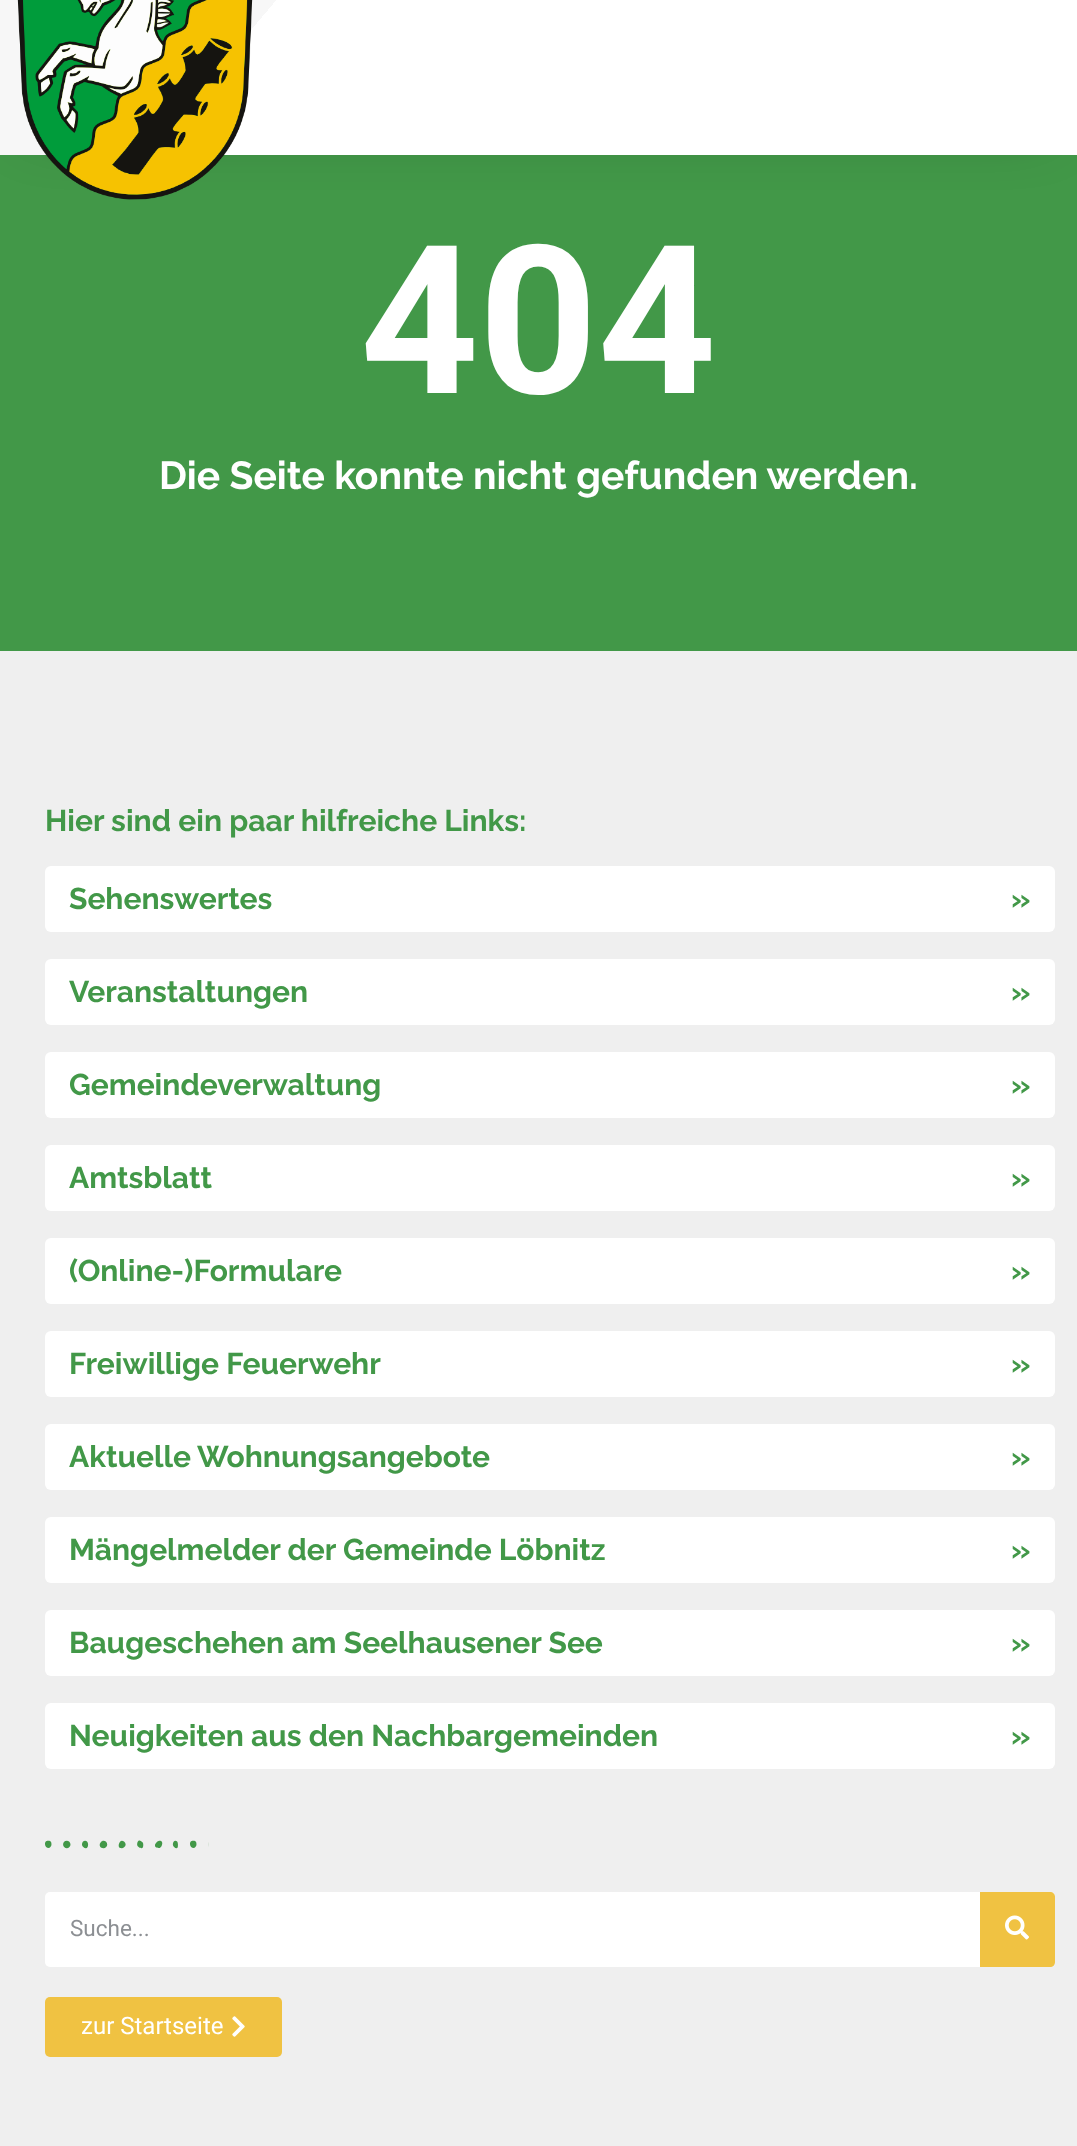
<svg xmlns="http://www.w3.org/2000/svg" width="1077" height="2146">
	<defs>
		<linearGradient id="g1" gradientUnits="userSpaceOnUse" x1="165" y1="-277" x2="912" y2="351"><stop offset="0.27" stop-color="#F7F7F7" /><stop offset="0.27" stop-color="#FFFFFF" /></linearGradient>
	</defs>
	<rect width="100%" height="100%" fill="#429848" />
	<rect x="30" y="-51" width="1017" height="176" fill="#000000" fill-opacity="0.3" filter="blur(30px)" />
	<rect x="0" y="0" width="1077" height="155" fill="url(#g1)" />
	<image x="17" y="0" width="236" height="200" href="assets/img1.png" />
	<text x="360" y="393" font-family="Roboto" font-size="207" font-weight="700" fill="#FFFFFF">404</text>
	<text x="159" y="489" font-family="Raleway" font-size="39" font-weight="700" fill="#FFFFFF">Die Seite konnte nicht gefunden werden.</text>
	<rect x="0" y="651" width="1077" height="1495" fill="#EFEFEF" />
	<text x="45" y="831" font-family="Raleway" font-size="30" font-weight="700" fill="#429848">Hier sind ein paar hilfreiche Links:</text>
	<rect x="45" y="866" width="1010" height="66" rx="6" fill="#FFFFFF" />
	<g font-family="Raleway" font-size="30" font-weight="700" fill="#429848">
		<text x="69" y="909">Sehenswertes</text>
		<text x="1011" y="909">»</text>
	</g>
	<rect x="45" y="959" width="1010" height="66" rx="6" fill="#FFFFFF" />
	<g font-family="Raleway" font-size="30" font-weight="700" fill="#429848">
		<text x="69" y="1002">Veranstaltungen</text>
		<text x="1011" y="1002">»</text>
	</g>
	<rect x="45" y="1052" width="1010" height="66" rx="6" fill="#FFFFFF" />
	<g font-family="Raleway" font-size="30" font-weight="700" fill="#429848">
		<text x="69" y="1095">Gemeindeverwaltung</text>
		<text x="1011" y="1095">»</text>
	</g>
	<rect x="45" y="1145" width="1010" height="66" rx="6" fill="#FFFFFF" />
	<g font-family="Raleway" font-size="30" font-weight="700" fill="#429848">
		<text x="69" y="1188">Amtsblatt</text>
		<text x="1011" y="1188">»</text>
	</g>
	<rect x="45" y="1238" width="1010" height="66" rx="6" fill="#FFFFFF" />
	<g font-family="Raleway" font-size="30" font-weight="700" fill="#429848">
		<text x="69" y="1281">(Online-)Formulare</text>
		<text x="1011" y="1281">»</text>
	</g>
	<rect x="45" y="1331" width="1010" height="66" rx="6" fill="#FFFFFF" />
	<g font-family="Raleway" font-size="30" font-weight="700" fill="#429848">
		<text x="69" y="1374">Freiwillige Feuerwehr</text>
		<text x="1011" y="1374">»</text>
	</g>
	<rect x="45" y="1424" width="1010" height="66" rx="6" fill="#FFFFFF" />
	<g font-family="Raleway" font-size="30" font-weight="700" fill="#429848">
		<text x="69" y="1467">Aktuelle Wohnungsangebote</text>
		<text x="1011" y="1467">»</text>
	</g>
	<rect x="45" y="1517" width="1010" height="66" rx="6" fill="#FFFFFF" />
	<g font-family="Raleway" font-size="30" font-weight="700" fill="#429848">
		<text x="69" y="1560">Mängelmelder der Gemeinde Löbnitz</text>
		<text x="1011" y="1560">»</text>
	</g>
	<rect x="45" y="1610" width="1010" height="66" rx="6" fill="#FFFFFF" />
	<g font-family="Raleway" font-size="30" font-weight="700" fill="#429848">
		<text x="69" y="1653">Baugeschehen am Seelhausener See</text>
		<text x="1011" y="1653">»</text>
	</g>
	<rect x="45" y="1703" width="1010" height="66" rx="6" fill="#FFFFFF" />
	<g font-family="Raleway" font-size="30" font-weight="700" fill="#429848">
		<text x="69" y="1746">Neuigkeiten aus den Nachbargemeinden</text>
		<text x="1011" y="1746">»</text>
	</g>
	<image x="45" y="1840" width="164" height="9" href="assets/img2.png" />
	<rect x="45" y="1892" width="1010" height="75" rx="5" fill="#FFFFFF" />
	<text x="70" y="1936" font-family="Roboto" font-size="22.5" fill="#8C8F93">Suche...</text>
	<path d="M980 1892H1050C1053 1892 1055 1894 1055 1897V1962C1055 1965 1053 1967 1050 1967H980Z" fill="#F0C242" />
	<image x="1005" y="1915" width="24" height="25" href="assets/img3.png" />
	<rect x="45" y="1997" width="237" height="60" rx="5" fill="#F0C242" />
	<text x="81" y="2034" font-family="Roboto" font-size="24" fill="#FFFFFF">zur Startseite</text>
	<image x="232" y="2016" width="13" height="21" href="assets/img4.png" />
</svg>
